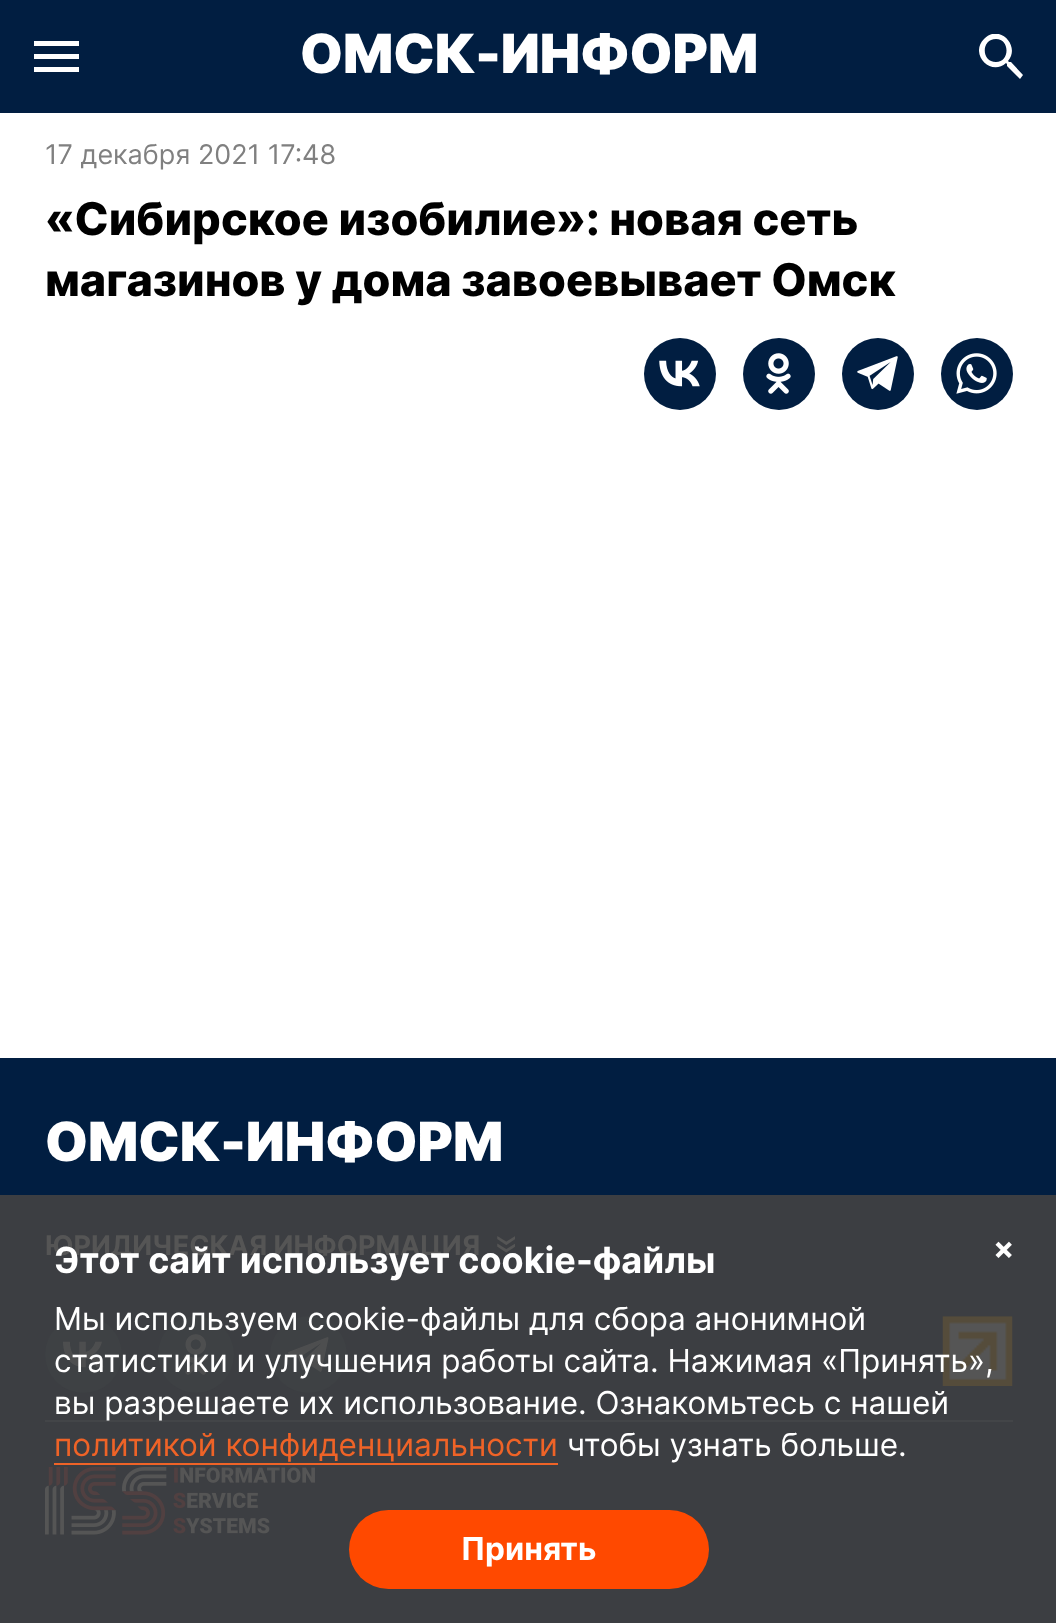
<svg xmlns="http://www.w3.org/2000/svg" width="1056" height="1623">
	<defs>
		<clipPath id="clip1"><rect x="979" y="34" width="45" height="45" /></clipPath>
	</defs>
	<rect width="100%" height="100%" fill="#FFFFFF" />
	<rect x="0" y="0" width="1056" height="113" fill="#011E41" />
	<path d="M34 41H79V46H34ZM34 54H79V59H34ZM34 67H79V72H34Z" fill="#FFFFFF" />
	<text x="300" y="73" font-family="Inter" font-size="54" font-weight="900" fill="#FFFFFF">ОМСК-ИНФОРМ</text>
	<g clip-path="url(#clip1)">
		<path d="M1011 62H1009L1008 61C1021 46 999 23 984 39C969 54 991 77 1006 63L1007 64V66L1020 79L1023 75ZM996 62C981 62 981 39 996 39C1010 39 1010 62 996 62" fill="#FFFFFF" />
	</g>
	<text x="45" y="164" font-family="Inter" font-size="27" fill="#808080">17 декабря 2021 17:48</text>
	<g font-family="Inter" font-size="45" font-weight="800" fill="#000000">
		<text x="45" y="235">«Сибирское изобилие»: новая сеть</text>
		<text x="45" y="296">магазинов у дома завоевывает Омск</text>
	</g>
	<circle cx="680" cy="374" r="36" fill="#011E41" />
	<image x="659" y="360" width="41" height="27" href="assets/img1.png" />
	<circle cx="779" cy="374" r="36" fill="#011E41" />
	<image x="766" y="353" width="25" height="41" href="assets/img2.png" />
	<circle cx="878" cy="374" r="36" fill="#011E41" />
	<image x="857" y="356" width="41" height="35" href="assets/img3.png" />
	<circle cx="977" cy="374" r="36" fill="#011E41" />
	<image x="956" y="353" width="41" height="41" href="assets/img4.png" />
	<rect x="0" y="1058" width="1056" height="137" fill="#011E41" />
	<rect x="0" y="1195" width="1056" height="428" fill="#3C3E42" />
	<text x="45" y="1161" font-family="Inter" font-size="54" font-weight="900" fill="#FFFFFF">ОМСК-ИНФОРМ</text>
	<text x="45" y="1255" font-family="Inter" font-size="27" font-weight="700" fill="#555555">ЮРИДИЧЕСКАЯ ИНФОРМАЦИЯ</text>
	<image x="497" y="1236" width="18" height="17" href="assets/img5.png" />
	<circle cx="83.5" cy="1354.5" r="38.5" fill="#3E4144" />
	<image x="63" y="1341" width="41" height="27" href="assets/img6.png" />
	<rect x="158" y="1316" width="76" height="77" rx="38" fill="#3E4144" />
	<image x="183" y="1334" width="25" height="41" href="assets/img7.png" />
	<circle cx="308.5" cy="1354.5" r="38.5" fill="#3E4144" />
	<image x="288" y="1337" width="41" height="35" href="assets/img8.png" />
	<image x="942" y="1316" width="71" height="70" href="assets/img9.png" />
	<rect x="45" y="1420" width="968" height="2" fill="#434548" />
	<image x="45" y="1467" width="270" height="68" href="assets/img10.png" />
	<text x="54" y="1273" font-family="Inter" font-size="36" font-weight="700" fill="#FFFFFF">Этот сайт использует cookie-файлы</text>
	<g font-family="Inter" font-size="31.5" fill="#FFFFFF">
		<text x="54" y="1330">Мы используем cookie-файлы для сбора анонимной</text>
		<text x="54" y="1372">статистики и улучшения работы сайта. Нажимая «Принять»,</text>
		<text x="54" y="1414">вы разрешаете их использование. Ознакомьтесь с нашей</text>
	</g>
	<text x="54" y="1456" font-family="Inter" font-size="31.5" fill="#EF6327">политикой конфиденциальности</text>
	<rect x="54" y="1463" width="504" height="2" fill="#EF6327" />
	<text x="567" y="1456" font-family="Inter" font-size="31.5" fill="#FFFFFF">чтобы узнать больше.</text>
	<rect x="349" y="1510" width="360" height="79" rx="39.5" fill="#FF4900" />
	<g font-family="Inter" font-size="31.5" font-weight="700" fill="#FFFFFF">
		<text x="461" y="1560">Принять</text>
		<text x="993" y="1259">×</text>
	</g>
</svg>
